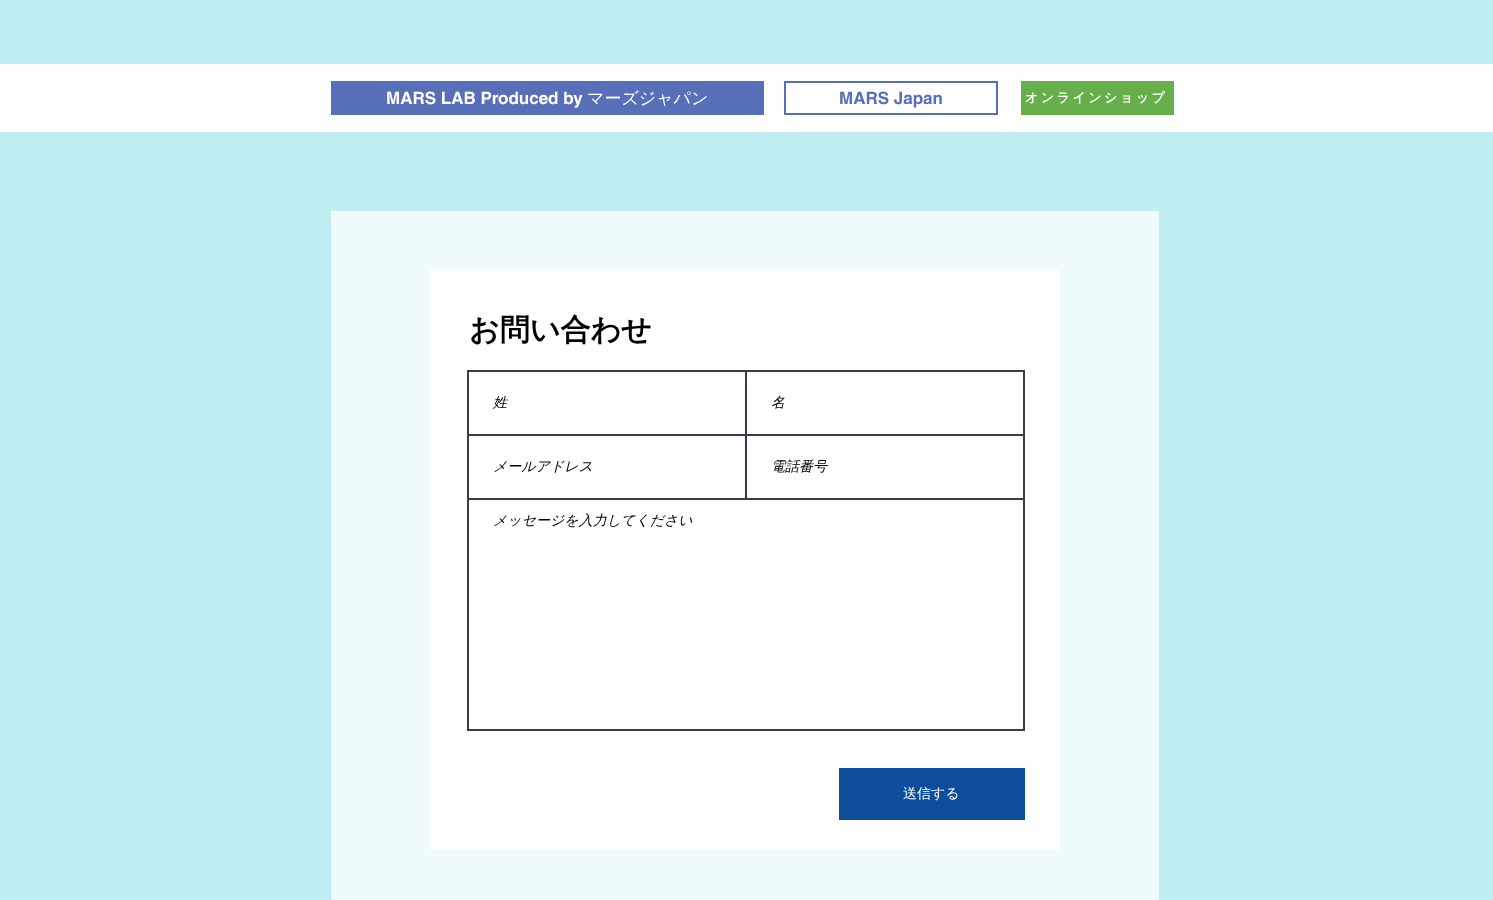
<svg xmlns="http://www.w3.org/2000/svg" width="1493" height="900">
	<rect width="100%" height="100%" fill="#BFEDF2" />
	<rect x="0" y="64" width="1493" height="68" fill="#FFFFFF" />
	<rect x="331" y="81" width="433" height="34" fill="#566FB8" />
	<text x="386" y="104" font-family="helvetica" font-size="17" font-weight="700" fill="#FFFFFF">MARS LAB Produced by</text>
	<text x="587" y="104" font-family="WenQuanYi Zen Hei" font-size="17" font-weight="500" fill="#FFFFFF">マーズジャパン</text>
	<rect x="785" y="82" width="212" height="32" fill="none" stroke="#566FB8" stroke-width="2" />
	<text x="839" y="104" font-family="helvetica" font-size="17" font-weight="700" fill="#566FB8">MARS Japan</text>
	<rect x="1021" y="81" width="153" height="34" fill="#67AF4B" />
	<text x="1025" y="102" font-family="WenQuanYi Zen Hei" font-size="13" font-weight="700" letter-spacing="2.5" fill="#FFFFFF">オンラインショップ</text>
	<rect x="331" y="211" width="828" height="689" fill="#F0FBFC" />
	<rect x="430" y="269" width="630" height="581" fill="#FFFFFF" />
	<text x="469" y="340" font-family="WenQuanYi Zen Hei" font-size="30" font-weight="700" fill="#000000">お問い合わせ</text>
	<rect x="468" y="371" width="278" height="64" fill="none" stroke="#373B4D" stroke-width="2" />
	<text x="493" y="407" font-family="WenQuanYi Zen Hei" font-size="14" font-weight="500" font-style="italic" fill="#000000">姓</text>
	<rect x="746" y="371" width="278" height="64" fill="none" stroke="#373B4D" stroke-width="2" />
	<text x="771" y="407" font-family="WenQuanYi Zen Hei" font-size="14" font-weight="500" font-style="italic" fill="#000000">名</text>
	<rect x="468" y="435" width="278" height="64" fill="none" stroke="#373B4D" stroke-width="2" />
	<text x="493" y="471" font-family="WenQuanYi Zen Hei" font-size="14" font-weight="500" font-style="italic" fill="#000000">メールアドレス</text>
	<rect x="746" y="435" width="278" height="64" fill="none" stroke="#373B4D" stroke-width="2" />
	<text x="771" y="471" font-family="WenQuanYi Zen Hei" font-size="14" font-weight="500" font-style="italic" fill="#000000">電話番号</text>
	<rect x="468" y="499" width="556" height="231" fill="none" stroke="#373B4D" stroke-width="2" />
	<text x="493" y="525" font-family="WenQuanYi Zen Hei" font-size="14" font-weight="500" font-style="italic" fill="#000000">メッセージを入力してください</text>
	<rect x="839" y="768" width="186" height="52" fill="#0C4D9C" />
	<text x="903" y="798" font-family="WenQuanYi Zen Hei" font-size="14" font-weight="500" fill="#FFFFFF">送信する</text>
</svg>
